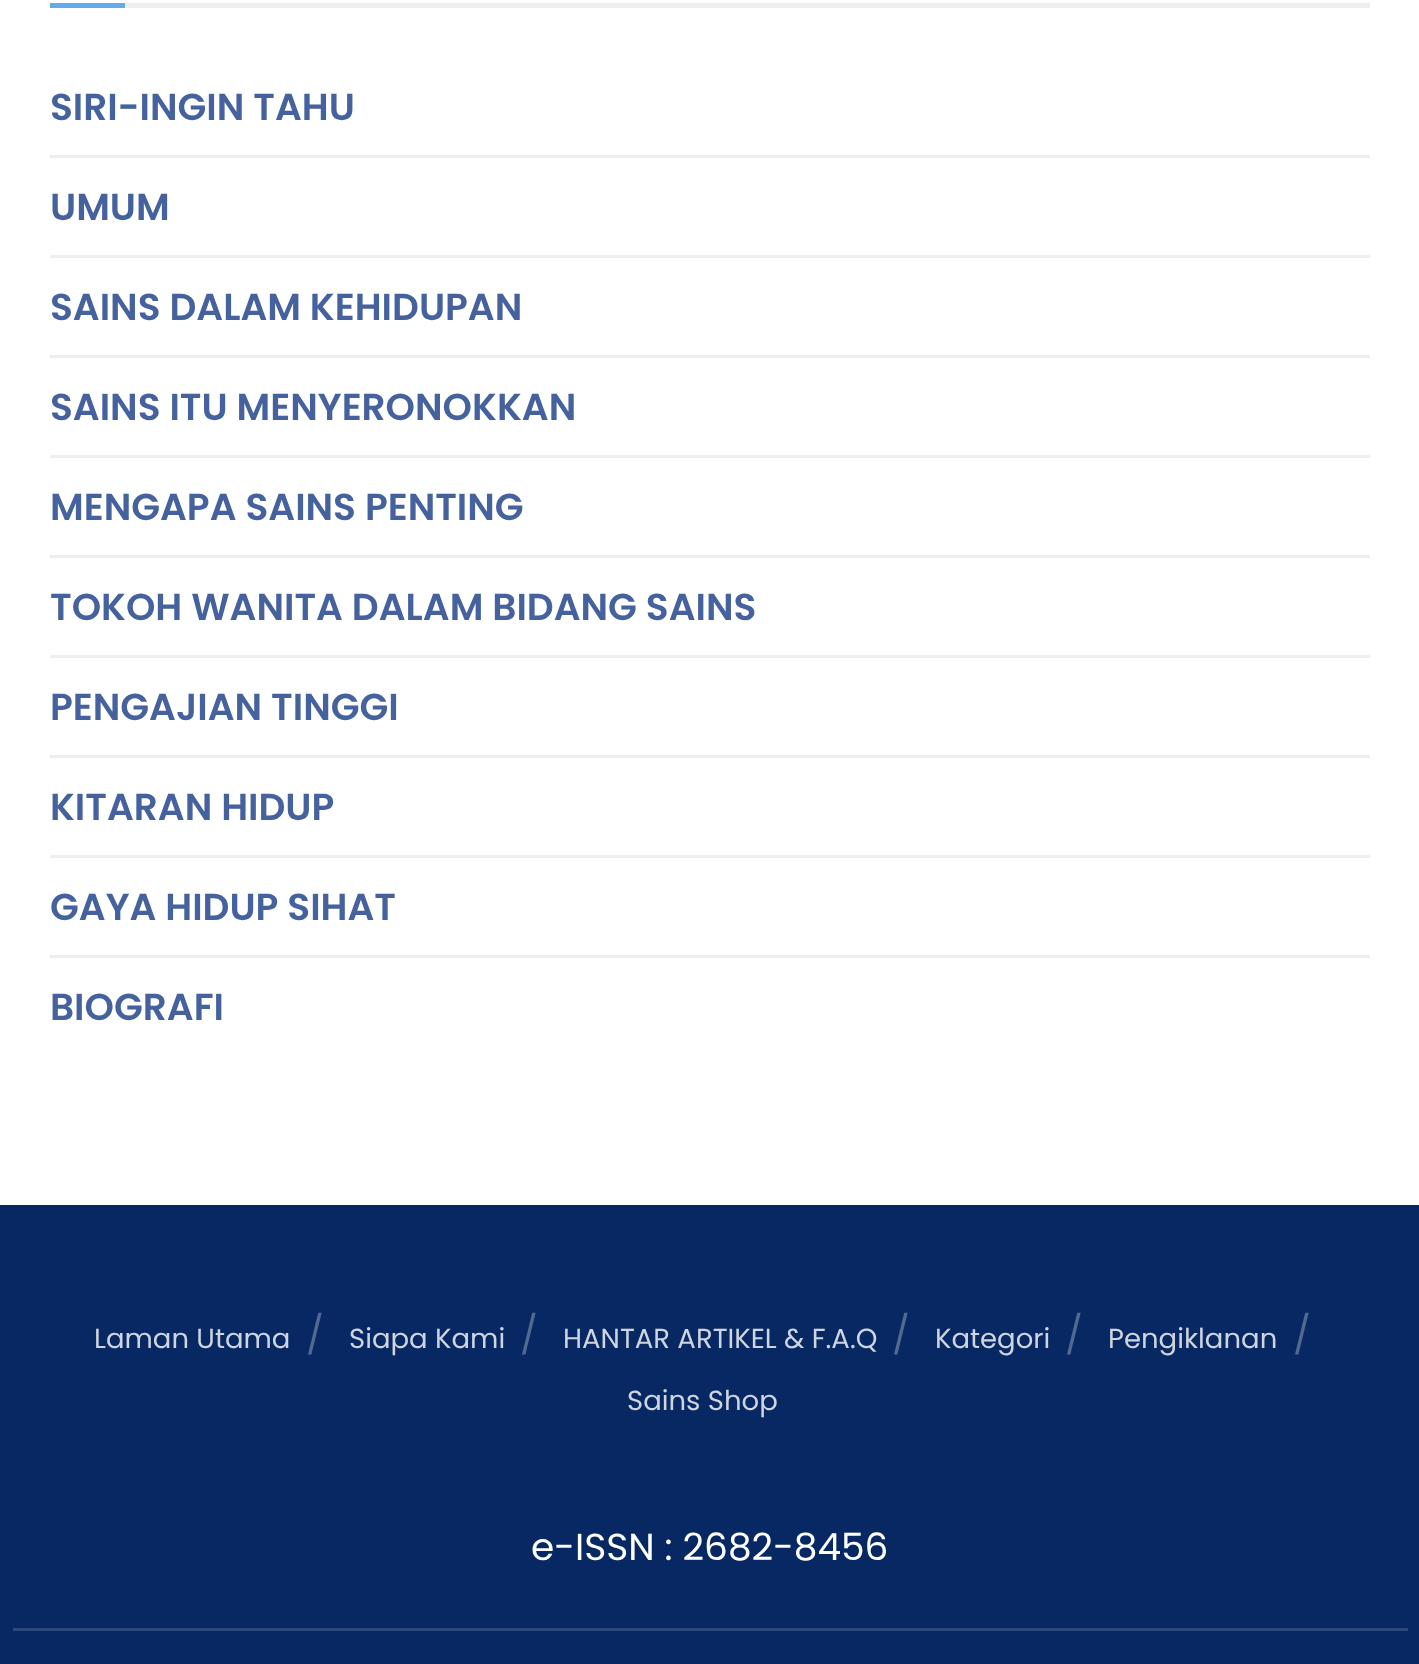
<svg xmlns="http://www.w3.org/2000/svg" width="1419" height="1664">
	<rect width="100%" height="100%" fill="#FFFFFF" />
	<rect x="125" y="3" width="1245" height="5" fill="#EEEEEE" />
	<rect x="50" y="3" width="75" height="5" fill="#63ABEA" />
	<text x="50" y="120" font-family="Poppins" font-size="37.5" font-weight="600" fill="#45629F">SIRI-INGIN TAHU</text>
	<rect x="50" y="155" width="1320" height="3" fill="#EEEEEE" />
	<text x="50" y="220" font-family="Poppins" font-size="37.5" font-weight="600" fill="#45629F">UMUM</text>
	<rect x="50" y="255" width="1320" height="3" fill="#EEEEEE" />
	<text x="50" y="320" font-family="Poppins" font-size="37.5" font-weight="600" fill="#45629F">SAINS DALAM KEHIDUPAN</text>
	<rect x="50" y="355" width="1320" height="3" fill="#EEEEEE" />
	<text x="50" y="420" font-family="Poppins" font-size="37.5" font-weight="600" fill="#45629F">SAINS ITU MENYERONOKKAN</text>
	<rect x="50" y="455" width="1320" height="3" fill="#EEEEEE" />
	<text x="50" y="520" font-family="Poppins" font-size="37.5" font-weight="600" fill="#45629F">MENGAPA SAINS PENTING</text>
	<rect x="50" y="555" width="1320" height="3" fill="#EEEEEE" />
	<text x="50" y="620" font-family="Poppins" font-size="37.5" font-weight="600" fill="#45629F">TOKOH WANITA DALAM BIDANG SAINS</text>
	<rect x="50" y="655" width="1320" height="3" fill="#EEEEEE" />
	<text x="50" y="720" font-family="Poppins" font-size="37.5" font-weight="600" fill="#45629F">PENGAJIAN TINGGI</text>
	<rect x="50" y="755" width="1320" height="3" fill="#EEEEEE" />
	<text x="50" y="820" font-family="Poppins" font-size="37.5" font-weight="600" fill="#45629F">KITARAN HIDUP</text>
	<rect x="50" y="855" width="1320" height="3" fill="#EEEEEE" />
	<text x="50" y="920" font-family="Poppins" font-size="37.5" font-weight="600" fill="#45629F">GAYA HIDUP SIHAT</text>
	<rect x="50" y="955" width="1320" height="3" fill="#EEEEEE" />
	<text x="50" y="1020" font-family="Poppins" font-size="37.5" font-weight="600" fill="#45629F">BIOGRAFI</text>
	<rect x="0" y="1205" width="1419" height="459" fill="#082863" />
	<text x="94" y="1348" font-family="Poppins" font-size="27.5" fill="#CED4E0">Laman Utama</text>
	<text x="306" y="1348" font-family="Poppins" font-size="37.5" fill="#526992">/</text>
	<text x="349" y="1348" font-family="Poppins" font-size="27.5" fill="#CED4E0">Siapa Kami</text>
	<text x="520" y="1348" font-family="Poppins" font-size="37.5" fill="#526992">/</text>
	<text x="563" y="1348" font-family="Poppins" font-size="27.5" fill="#CED4E0">HANTAR ARTIKEL &amp; F.A.Q</text>
	<text x="892" y="1348" font-family="Poppins" font-size="37.5" fill="#526992">/</text>
	<text x="935" y="1348" font-family="Poppins" font-size="27.5" fill="#CED4E0">Kategori</text>
	<text x="1065" y="1348" font-family="Poppins" font-size="37.5" fill="#526992">/</text>
	<text x="1108" y="1348" font-family="Poppins" font-size="27.5" fill="#CED4E0">Pengiklanan</text>
	<text x="1293" y="1348" font-family="Poppins" font-size="37.5" fill="#526992">/</text>
	<text x="627" y="1410" font-family="Poppins" font-size="27.5" fill="#CED4E0">Sains Shop</text>
	<text x="531" y="1560" font-family="Poppins" font-size="37.5" fill="#FFFFFF">e-ISSN : 2682-8456</text>
	<rect x="13" y="1628" width="1395" height="3" fill="#2D487A" />
</svg>
